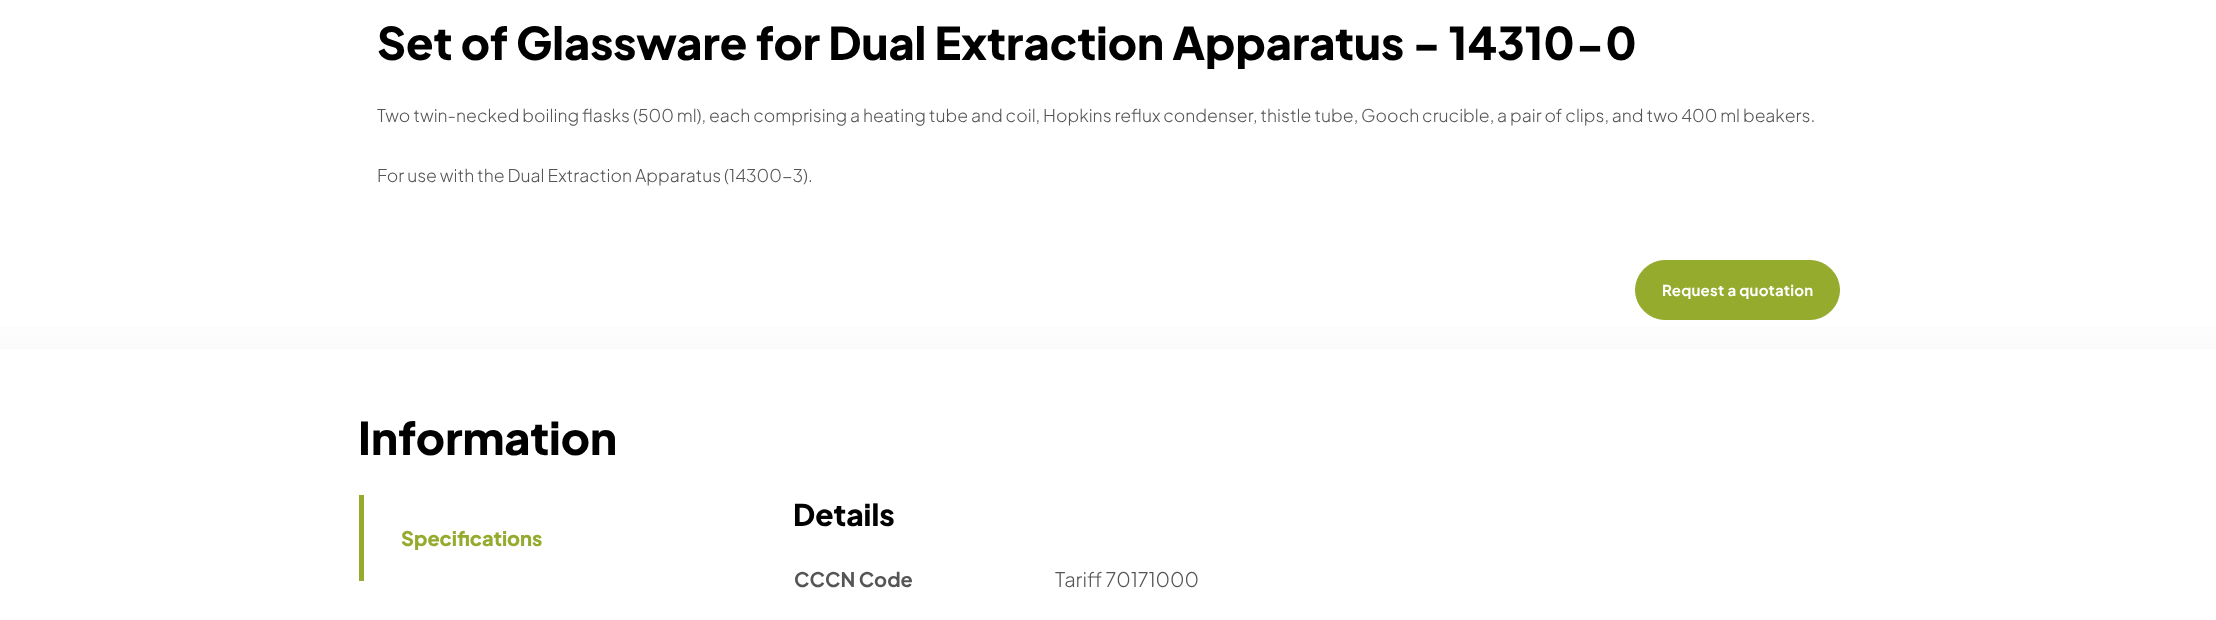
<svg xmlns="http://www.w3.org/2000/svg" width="2216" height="620">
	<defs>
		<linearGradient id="g1" gradientUnits="userSpaceOnUse" x1="1108" y1="230" x2="1108" y2="349"><stop offset="0.5" stop-color="#FFFFFF" /><stop offset="1" stop-color="#FBFBFB" /></linearGradient>
	</defs>
	<rect width="100%" height="100%" fill="#FFFFFF" />
	<text x="377" y="60" font-family="Plus Jakarta Sans" font-size="45" font-weight="800" fill="#000000">Set of Glassware for Dual Extraction Apparatus - 14310-0</text>
	<g font-family="Plus Jakarta Sans" font-size="17.5" font-weight="300" fill="#555555">
		<text x="377" y="122">Two twin-necked boiling flasks (500 ml), each comprising a heating tube and coil, Hopkins reflux condenser, thistle tube, Gooch crucible, a pair of clips, and two 400 ml beakers.</text>
		<text x="377" y="182">For use with the Dual Extraction Apparatus (14300-3).</text>
	</g>
	<rect x="1635.5" y="260.5" width="204" height="59" rx="29.5" fill="#95AB2E" stroke="#95AB2E" />
	<text x="1662" y="296" font-family="Plus Jakarta Sans" font-size="15" font-weight="700" letter-spacing="0.25" fill="#FFFFFF">Request a quotation</text>
	<rect x="0" y="327" width="2216" height="22" fill="url(#g1)" />
	<text x="358" y="455" font-family="Plus Jakarta Sans" font-size="45" font-weight="800" fill="#000000">Information</text>
	<rect x="359" y="495" width="5" height="86" fill="#95AB2E" />
	<text x="401" y="546" font-family="Plus Jakarta Sans" font-size="20" font-weight="800" fill="#95AB2E">Specifications</text>
	<text x="793" y="526" font-family="Plus Jakarta Sans" font-size="30" font-weight="800" fill="#000000">Details</text>
	<text x="794" y="587" font-family="Plus Jakarta Sans" font-size="20" font-weight="700" fill="#555555">CCCN Code</text>
	<text x="1055" y="587" font-family="Plus Jakarta Sans" font-size="20" font-weight="300" fill="#555555">Tariff 70171000</text>
</svg>
